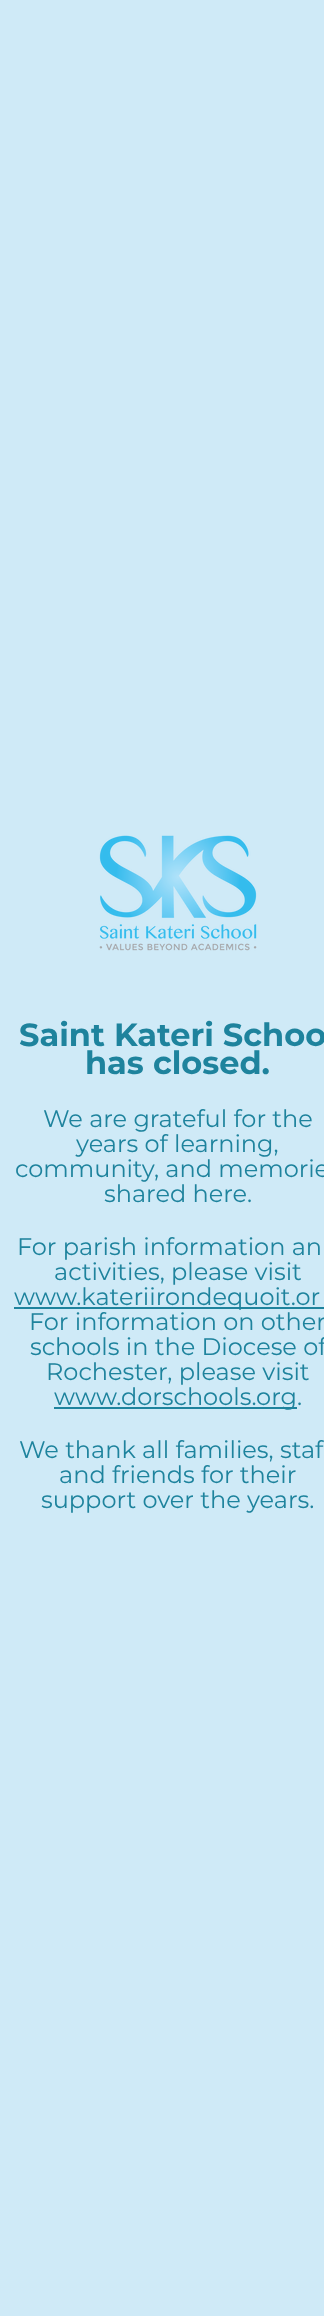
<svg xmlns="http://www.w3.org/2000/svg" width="324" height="2316">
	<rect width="100%" height="100%" fill="#CFEAF7" />
	<image x="99" y="835" width="158" height="116" href="assets/img1.png" />
	<g font-family="Montserrat" font-size="32" font-weight="700" fill="#1E839D">
		<text x="19" y="1046">Saint Kateri Schoo</text>
		<text x="85" y="1074">has closed.</text>
	</g>
	<g font-family="Montserrat" font-size="24" fill="#1E839D">
		<text x="43" y="1127">We are grateful for the</text>
		<text x="76" y="1152">years of learning,</text>
		<text x="15" y="1177">community, and memorie</text>
		<text x="104" y="1202">shared here.</text>
		<text x="17" y="1255">For parish information an</text>
		<text x="54" y="1280">activities, please visit</text>
	</g>
	<rect x="14" y="1307" width="310" height="2" fill="#1E839D" />
	<g font-family="Montserrat" font-size="24" fill="#1E839D">
		<text x="14" y="1305">www.kateriirondequoit.or</text>
		<text x="29" y="1330">For information on other</text>
		<text x="30" y="1355">schools in the Diocese of</text>
		<text x="46" y="1380">Rochester, please visit</text>
	</g>
	<rect x="54" y="1407" width="243" height="2" fill="#1E839D" />
	<g font-family="Montserrat" font-size="24" fill="#1E839D">
		<text x="54" y="1405">www.dorschools.org.</text>
		<text x="19" y="1458">We thank all families, staf</text>
		<text x="59" y="1483">and friends for their</text>
		<text x="41" y="1508">support over the years.</text>
	</g>
</svg>
